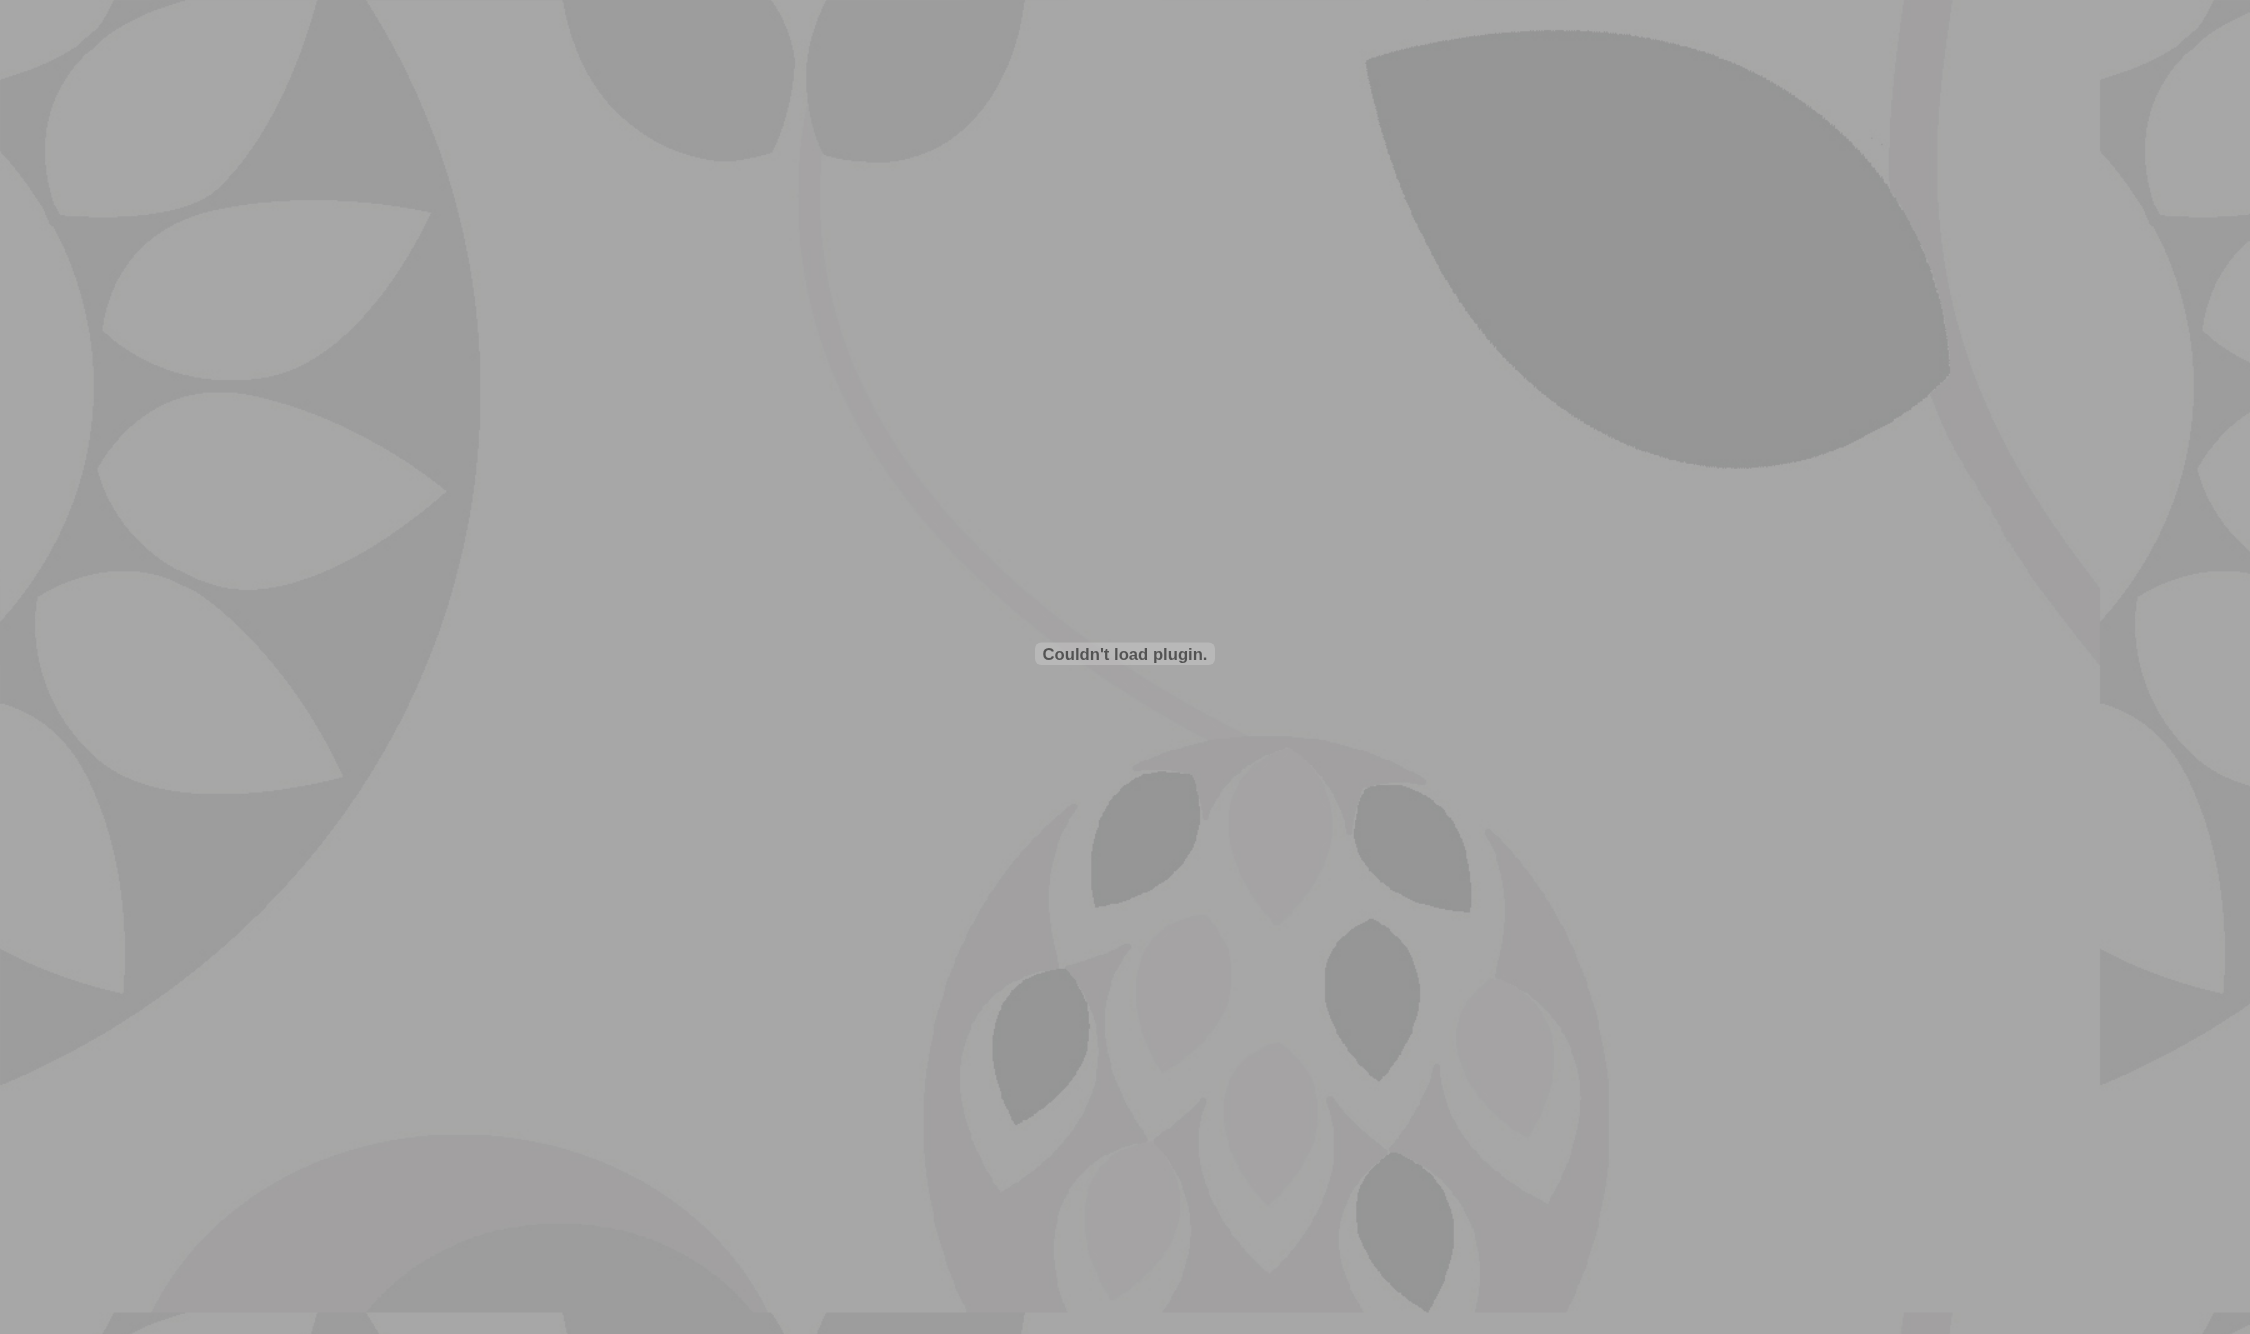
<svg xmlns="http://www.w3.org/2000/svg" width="2250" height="1334">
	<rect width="100%" height="100%" fill="#FFFFFF" />
	<image x="0" y="0" width="2250" height="1334" href="assets/img1.png" />
	<image x="1035" y="642" width="180" height="23" href="assets/img2.png" />
</svg>
